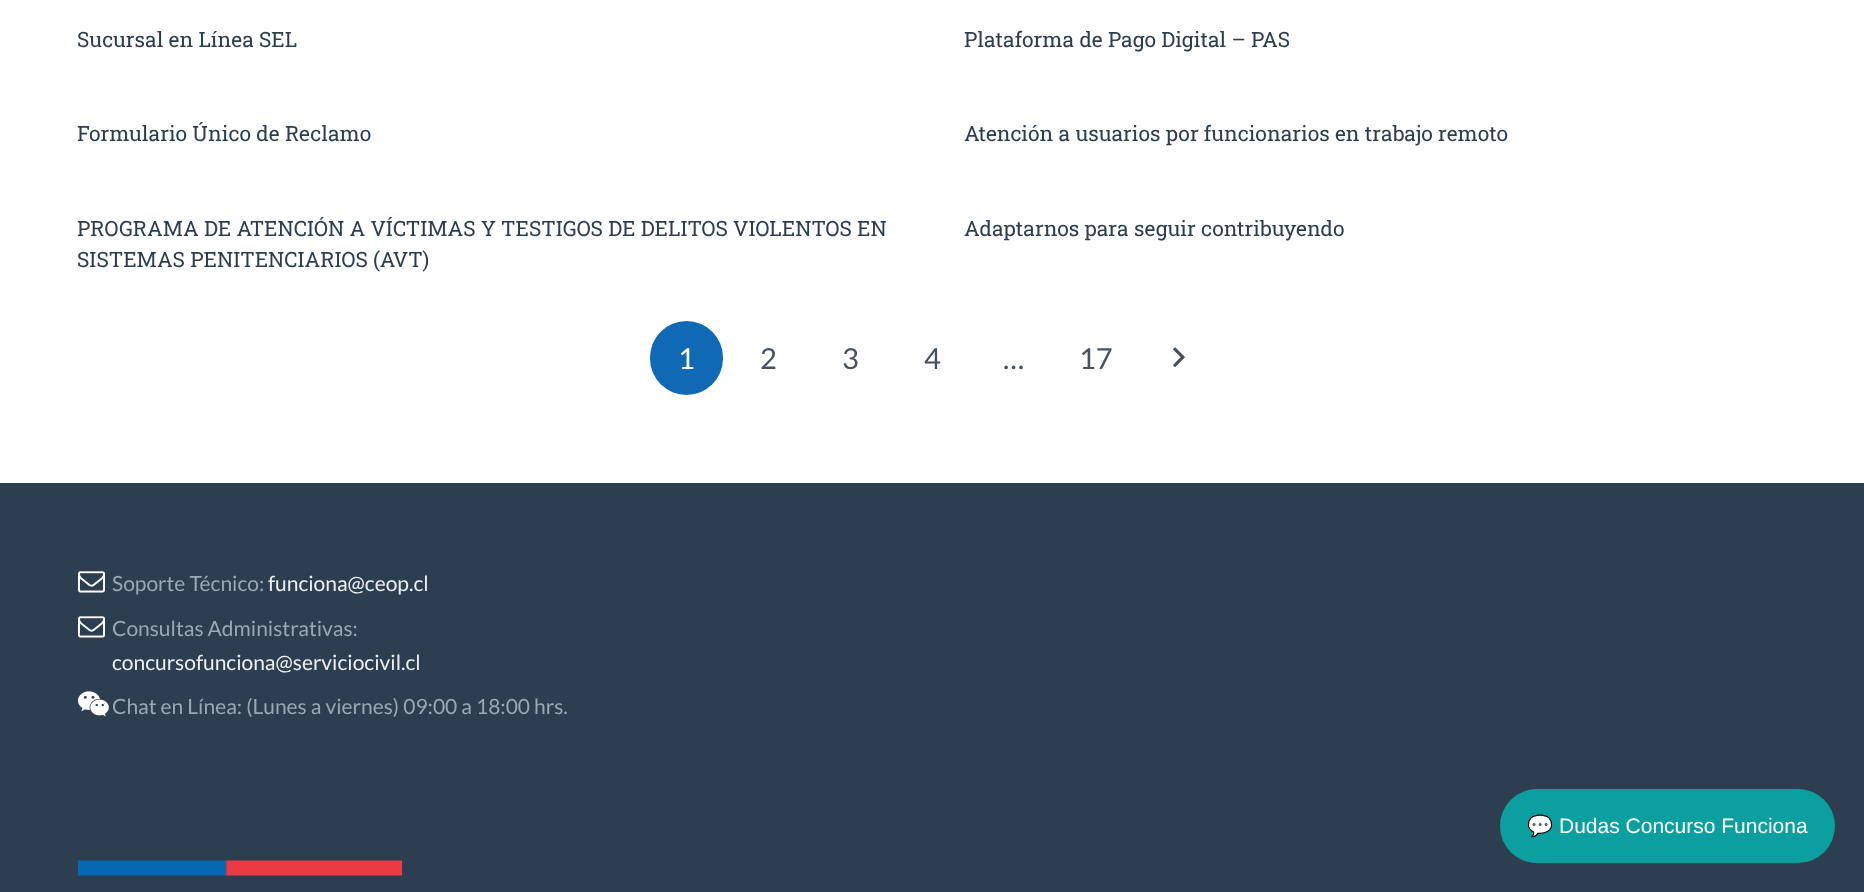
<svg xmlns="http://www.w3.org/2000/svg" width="1864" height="892">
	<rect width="100%" height="100%" fill="#FFFFFF" />
	<g font-family="Roboto Slab" font-size="21" fill="#2C3E50">
		<text x="77" y="47">Sucursal en Línea SEL</text>
		<text x="964" y="47">Plataforma de Pago Digital – PAS</text>
		<text x="77" y="141">Formulario Único de Reclamo</text>
		<text x="964" y="141">Atención a usuarios por funcionarios en trabajo remoto</text>
		<text x="77" y="236">PROGRAMA DE ATENCIÓN A VÍCTIMAS Y TESTIGOS DE DELITOS VIOLENTOS EN</text>
		<text x="77" y="267">SISTEMAS PENITENCIARIOS (AVT)</text>
		<text x="964" y="236">Adaptarnos para seguir contribuyendo</text>
	</g>
	<rect x="650" y="321" width="73" height="74" rx="36.5" fill="#0F69B4" />
	<text x="678" y="369" font-family="Lato" font-size="29" fill="#FFFFFF">1</text>
	<g font-family="Lato" font-size="29" fill="#46515C">
		<text x="760" y="369">2</text>
		<text x="842" y="369">3</text>
		<text x="924" y="369">4</text>
		<text x="1079" y="369">17</text>
	</g>
	<image x="1173" y="347" width="12" height="20" href="assets/img1.png" />
	<text x="1003" y="369" font-family="Lato" font-size="29" fill="#46515C">…</text>
	<rect x="0" y="483" width="1864" height="409" fill="#2C3E50" />
	<image x="78" y="571" width="27" height="22" href="assets/img2.png" />
	<text x="112" y="591" font-family="Lato" font-size="21" fill="#9AA7B5">Soporte Técnico:</text>
	<text x="268" y="591" font-family="Lato" font-size="21" fill="#EDF0F2">funciona@ceop.cl</text>
	<image x="78" y="616" width="27" height="22" href="assets/img2.png" />
	<text x="112" y="636" font-family="Lato" font-size="21" fill="#9AA7B5">Consultas Administrativas:</text>
	<text x="112" y="670" font-family="Lato" font-size="21" fill="#EDF0F2">concursofunciona@serviciocivil.cl</text>
	<image x="78" y="691" width="31" height="26" href="assets/img3.png" />
	<text x="112" y="714" font-family="Lato" font-size="21" fill="#9AA7B5">Chat en Línea: (Lunes a viernes) 09:00 a 18:00 hrs.</text>
	<rect x="1500" y="789" width="335" height="74" rx="37" fill="#0C9F9F" />
	<text x="1527" y="833" font-family="Noto Color Emoji" font-size="21" fill="#FFFFFF">💬</text>
	<text x="1559" y="833" font-family="Liberation Sans" font-size="21" fill="#FFFFFF">Dudas Concurso Funciona</text>
	<image x="78" y="860" width="324" height="16" href="assets/img4.png" />
</svg>
